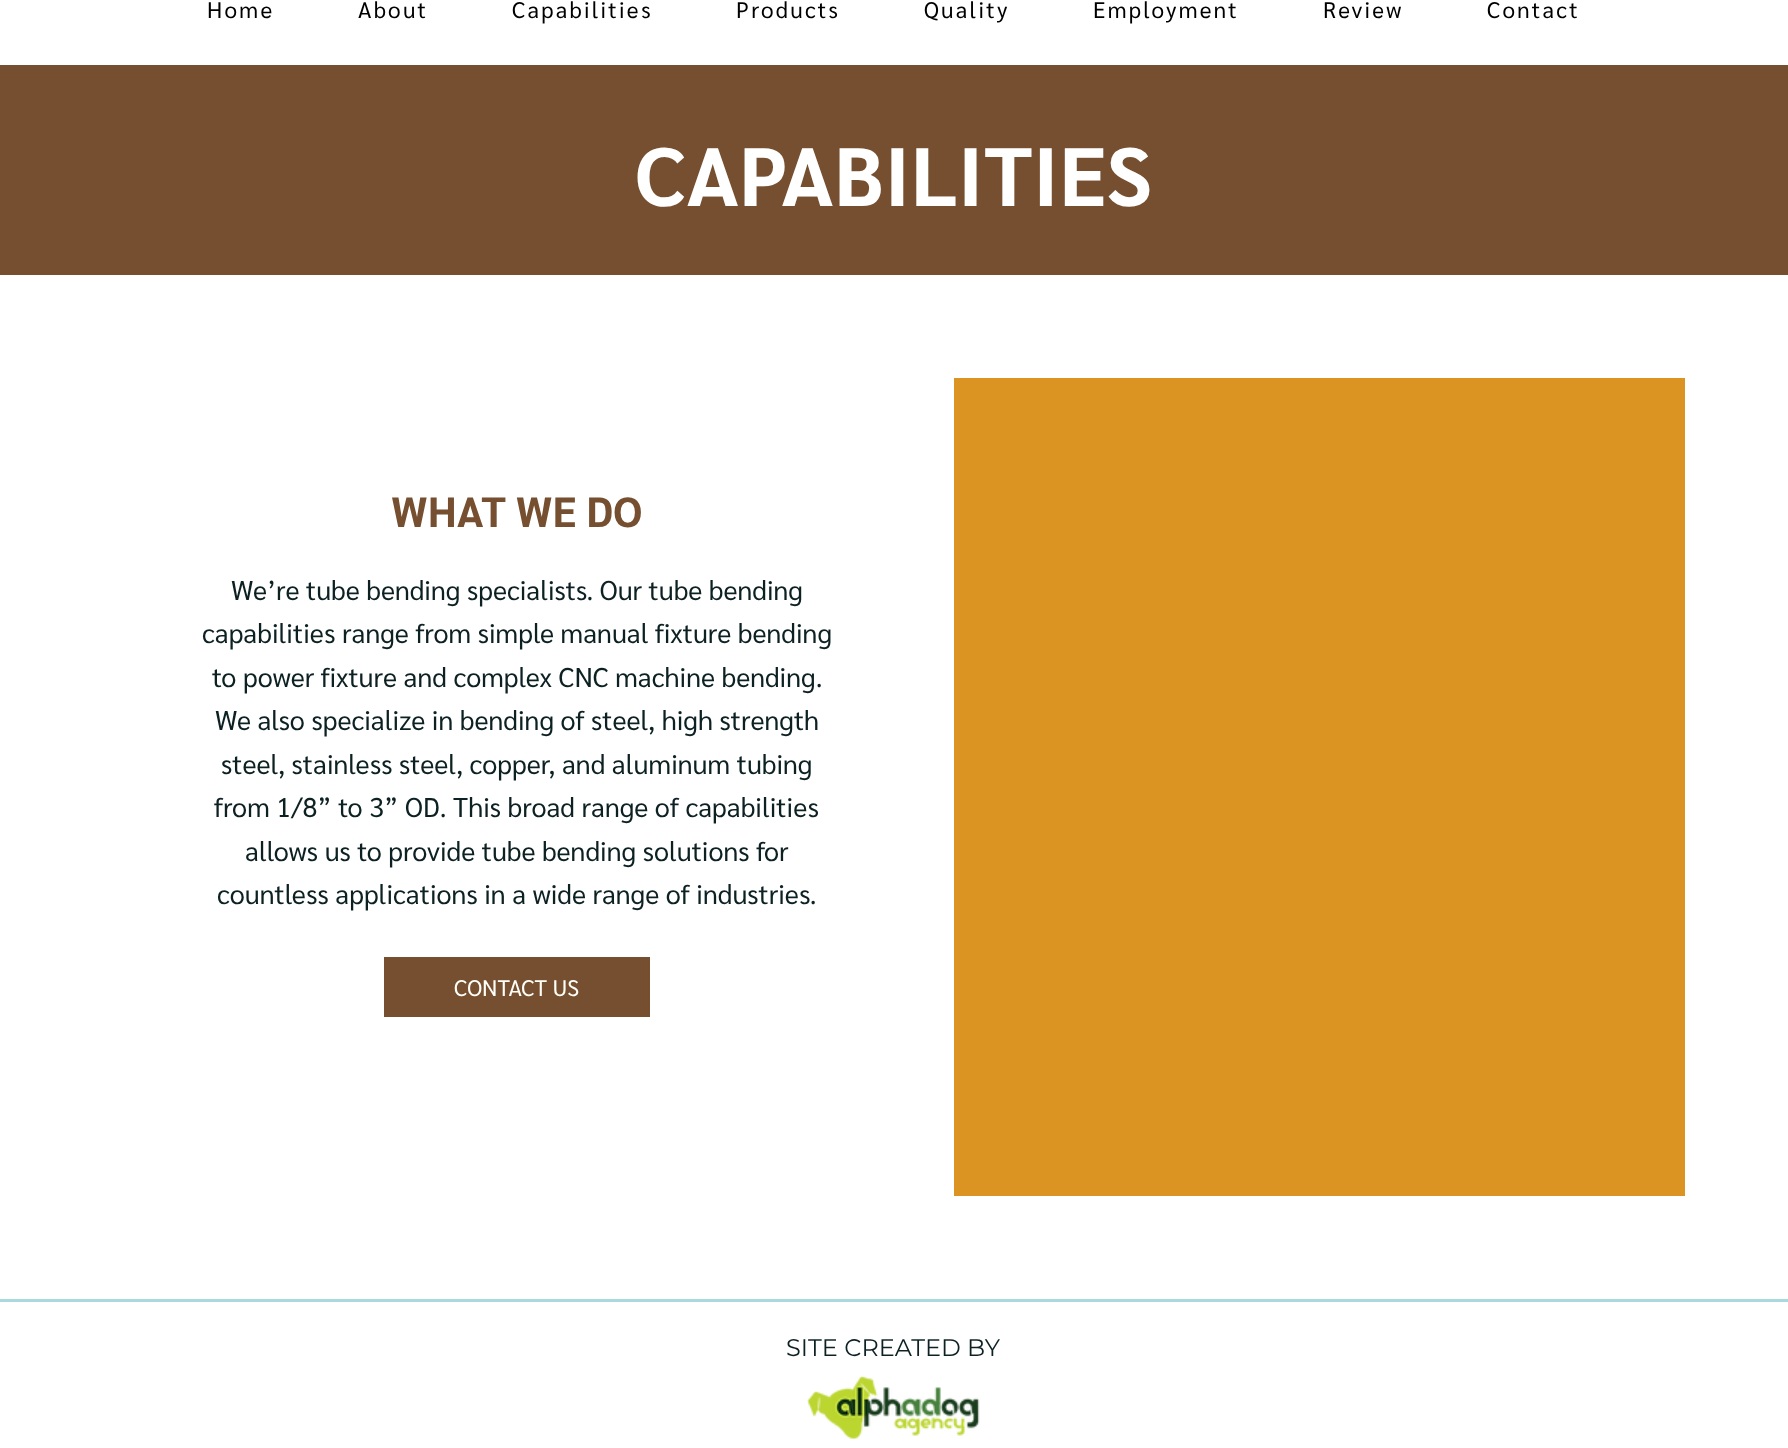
<svg xmlns="http://www.w3.org/2000/svg" width="1788" height="1448">
	<rect width="100%" height="100%" fill="#754F2F" />
	<rect x="0" y="0" width="1788" height="65" fill="#FFFFFF" />
	<g font-family="Sarabun" font-size="22.5" letter-spacing="2.25" fill="#000000">
		<text x="207" y="18">Home</text>
		<text x="358" y="18">About</text>
		<text x="512" y="18">Capabilities</text>
		<text x="736" y="18">Products</text>
		<text x="924" y="18">Quality</text>
		<text x="1093" y="18">Employment</text>
		<text x="1323" y="18">Review</text>
		<text x="1487" y="18">Contact</text>
	</g>
	<text x="635" y="206" font-family="Sarabun" font-size="82.5" font-weight="700" fill="#FFFFFF">CAPABILITIES</text>
	<rect x="0" y="275" width="1788" height="1024" fill="#FFFFFF" />
	<text x="391" y="527" font-family="Sarabun" font-size="42" font-weight="700" fill="#754F2F">WHAT WE DO</text>
	<g font-family="Sarabun" font-size="27" fill="#0D2123">
		<text x="231" y="600">We’re tube bending specialists. Our tube bending</text>
		<text x="202" y="643">capabilities range from simple manual fixture bending</text>
		<text x="212" y="687">to power fixture and complex CNC machine bending.</text>
		<text x="215" y="730">We also specialize in bending of steel, high strength</text>
		<text x="221" y="774">steel, stainless steel, copper, and aluminum tubing</text>
		<text x="214" y="817">from 1/8” to 3” OD. This broad range of capabilities</text>
		<text x="245" y="861">allows us to provide tube bending solutions for</text>
		<text x="217" y="904">countless applications in a wide range of industries.</text>
	</g>
	<rect x="384" y="957" width="266" height="60" fill="#754F2F" />
	<text x="454" y="996" font-family="Sarabun" font-size="22.5" fill="#FFFEF8">CONTACT US</text>
	<rect x="954" y="378" width="731" height="818" fill="#DB9421" />
	<rect x="0" y="1302" width="1788" height="146" fill="#FFFFFF" />
	<rect x="0" y="1299" width="1788" height="3" fill="#A7D9DE" />
	<text x="786" y="1356" font-family="Montserrat" font-size="24" fill="#0D2123">SITE CREATED BY</text>
	<image x="807" y="1375" width="173" height="65" href="assets/img1.png" />
</svg>
